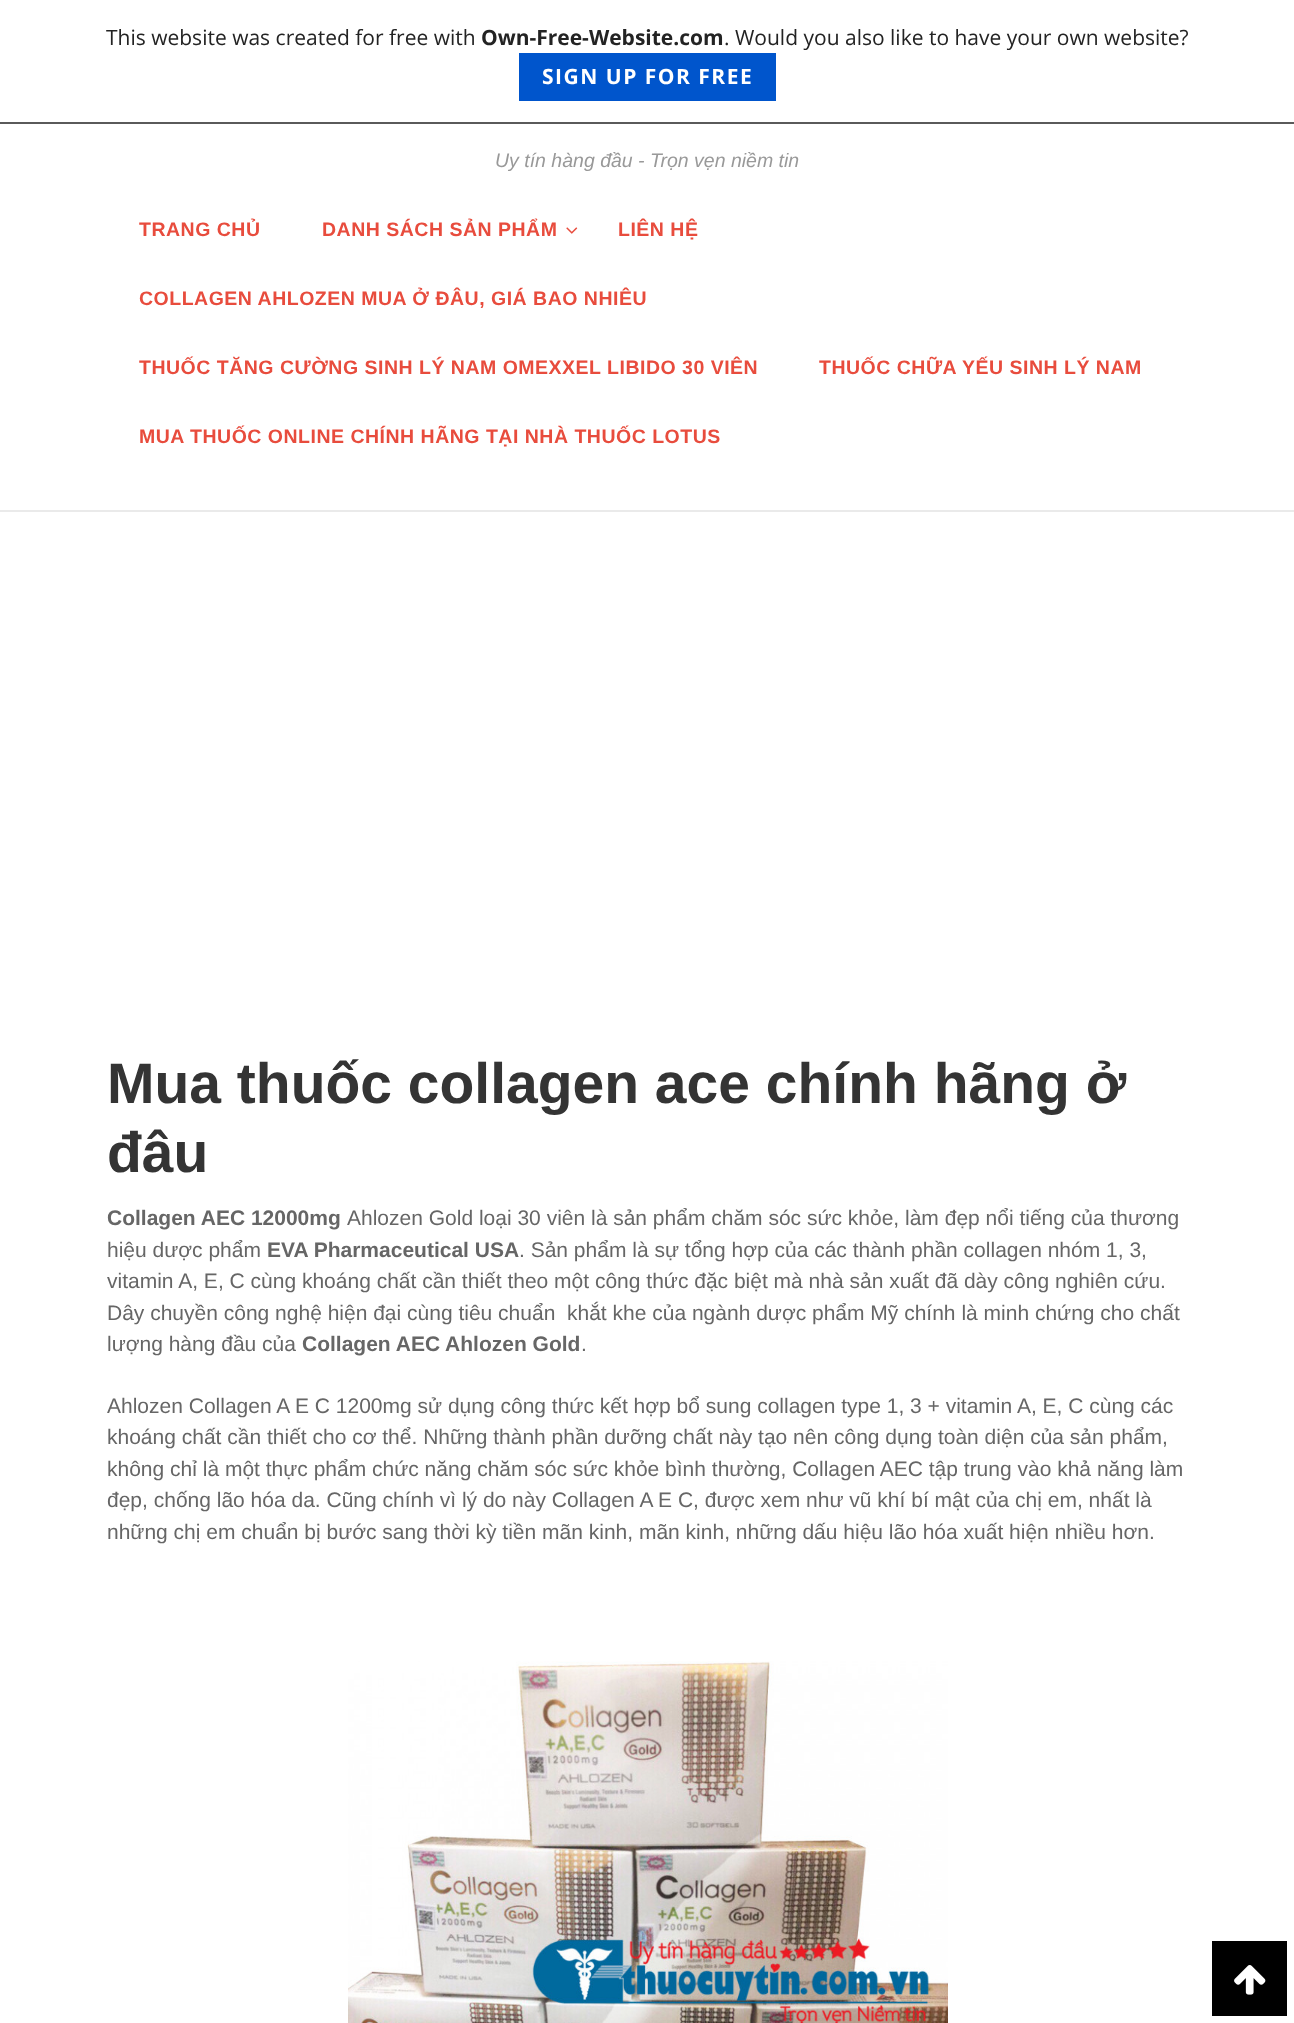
<svg xmlns="http://www.w3.org/2000/svg" width="1294" height="2023">
	<rect width="100%" height="100%" fill="#FFFFFF" />
	<rect x="0" y="122" width="1294" height="2" fill="#5A5A5A" />
	<text x="106" y="45" font-family="Open Sans" font-size="21" fill="#232323">This website was created for free with</text>
	<text x="481" y="45" font-family="Open Sans" font-size="21" font-weight="700" fill="#232323">Own-Free-Website.com</text>
	<text x="724" y="45" font-family="Open Sans" font-size="21" fill="#232323">. Would you also like to have your own website?</text>
	<rect x="519" y="53" width="257" height="48" fill="#0055CC" />
	<text x="542" y="84" font-family="Open Sans" font-size="21" font-weight="700" letter-spacing="1.5" fill="#FFFFFF">SIGN UP FOR FREE</text>
	<rect x="0" y="510" width="1294" height="2" fill="#EAEAEA" />
	<text x="495" y="167" font-family="Liberation Sans" font-size="19.5" font-style="italic" fill="#999999">Uy tín hàng đầu - Trọn vẹn niềm tin</text>
	<g font-family="Liberation Sans" font-size="19.5" font-weight="700" letter-spacing="0.5" fill="#E84C3D">
		<text x="139" y="236">TRANG CHỦ</text>
		<text x="322" y="236">DANH SÁCH SẢN PHẨM</text>
	</g>
	<image x="566" y="227" width="12" height="7" href="assets/img1.png" />
	<g font-family="Liberation Sans" font-size="19.5" font-weight="700" letter-spacing="0.5" fill="#E84C3D">
		<text x="618" y="236">LIÊN HỆ</text>
		<text x="139" y="305">COLLAGEN AHLOZEN MUA Ở ĐÂU, GIÁ BAO NHIÊU</text>
		<text x="139" y="374">THUỐC TĂNG CƯỜNG SINH LÝ NAM OMEXXEL LIBIDO 30 VIÊN</text>
		<text x="819" y="374">THUỐC CHỮA YẾU SINH LÝ NAM</text>
		<text x="139" y="443">MUA THUỐC ONLINE CHÍNH HÃNG TẠI NHÀ THUỐC LOTUS</text>
	</g>
	<g font-family="Liberation Sans" font-size="57" font-weight="700" fill="#343434">
		<text x="107" y="1103">Mua thuốc collagen ace chính hãng ở</text>
		<text x="107" y="1172">đâu</text>
	</g>
	<text x="107" y="1225" font-family="Liberation Sans" font-size="21" font-weight="700" fill="#666666">Collagen AEC 12000mg</text>
	<g font-family="Liberation Sans" font-size="21" fill="#666666">
		<text x="347" y="1225">Ahlozen Gold loại 30 viên là sản phẩm chăm sóc sức khỏe, làm đẹp nổi tiếng của thương</text>
		<text x="107" y="1257">hiệu dược phẩm</text>
	</g>
	<text x="267" y="1257" font-family="Liberation Sans" font-size="21" font-weight="700" fill="#666666">EVA Pharmaceutical USA</text>
	<g font-family="Liberation Sans" font-size="21" fill="#666666">
		<text x="519" y="1257">. Sản phẩm là sự tổng hợp của các thành phần collagen nhóm 1, 3,</text>
		<text x="107" y="1288">vitamin A, E, C cùng khoáng chất cần thiết theo một công thức đặc biệt mà nhà sản xuất đã dày công nghiên cứu.</text>
		<text x="107" y="1320" xml:space="preserve">Dây chuyền công nghệ hiện đại cùng tiêu chuẩn  khắt khe của ngành dược phẩm Mỹ chính là minh chứng cho chất</text>
		<text x="107" y="1351">lượng hàng đầu của</text>
	</g>
	<text x="302" y="1351" font-family="Liberation Sans" font-size="21" font-weight="700" fill="#666666">Collagen AEC Ahlozen Gold</text>
	<g font-family="Liberation Sans" font-size="21" fill="#666666">
		<text x="581" y="1351">.</text>
		<text x="107" y="1413">Ahlozen Collagen A E C 1200mg sử dụng công thức kết hợp bổ sung collagen type 1, 3 + vitamin A, E, C cùng các</text>
		<text x="107" y="1444">khoáng chất cần thiết cho cơ thể. Những thành phần dưỡng chất này tạo nên công dụng toàn diện của sản phẩm,</text>
		<text x="107" y="1476">không chỉ là một thực phẩm chức năng chăm sóc sức khỏe bình thường, Collagen AEC tập trung vào khả năng làm</text>
		<text x="107" y="1507">đẹp, chống lão hóa da. Cũng chính vì lý do này Collagen A E C, được xem như vũ khí bí mật của chị em, nhất là</text>
		<text x="107" y="1539">những chị em chuẩn bị bước sang thời kỳ tiền mãn kinh, mãn kinh, những dấu hiệu lão hóa xuất hiện nhiều hơn.</text>
	</g>
	<image x="348" y="1661" width="600" height="362" href="assets/img2.png" />
	<rect x="1212" y="1941" width="75" height="75" fill="#000000" />
	<image x="1234" y="1965" width="32" height="30" href="assets/img3.png" />
</svg>
